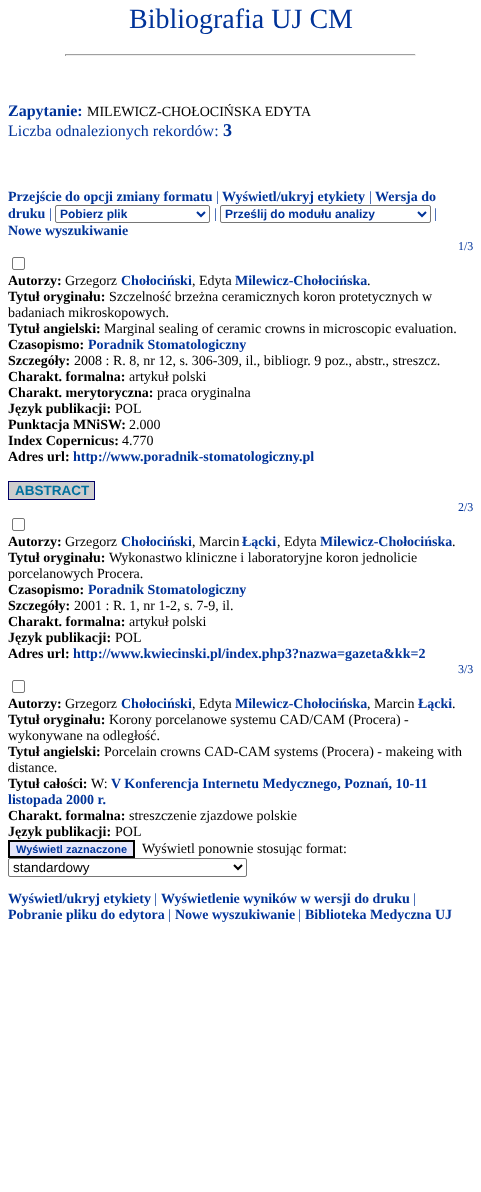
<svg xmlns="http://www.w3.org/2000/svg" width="481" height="1192">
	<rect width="100%" height="100%" fill="#FFFFFF" />
	<text x="129" y="28" font-family="Liberation Serif" font-size="28" fill="#003399">Bibliografia UJ CM</text>
	<rect x="65" y="54" width="351" height="1" fill="#9F9F9F" />
	<rect x="415" y="54" width="1" height="2" fill="#EEEEEE" />
	<rect x="65" y="55" width="351" height="1" fill="#EEEEEE" />
	<rect x="65" y="54" width="1" height="2" fill="#9F9F9F" />
	<text x="8" y="116" font-family="Liberation Serif" font-size="16" font-weight="700" fill="#003399">Zapytanie:</text>
	<text x="87" y="116" font-family="Liberation Serif" font-size="14" fill="#000000">MILEWICZ-CHOŁOCIŃSKA EDYTA</text>
	<text x="8" y="136" font-family="Liberation Serif" font-size="16" fill="#003399">Liczba odnalezionych rekordów:</text>
	<text x="223" y="136" font-family="Liberation Serif" font-size="18" font-weight="700" fill="#003399">3</text>
	<text x="8" y="201" font-family="Liberation Serif" font-size="14" font-weight="700" fill="#003399">Przejście do opcji zmiany formatu</text>
	<text x="216" y="201" font-family="Liberation Serif" font-size="14" fill="#003399">|</text>
	<text x="222" y="201" font-family="Liberation Serif" font-size="14" font-weight="700" fill="#003399">Wyświetl/ukryj etykiety</text>
	<text x="369" y="201" font-family="Liberation Serif" font-size="14" fill="#003399">|</text>
	<g font-family="Liberation Serif" font-size="14" font-weight="700" fill="#003399">
		<text x="375" y="201">Wersja do</text>
		<text x="8" y="218">druku</text>
	</g>
	<text x="49" y="218" font-family="Liberation Serif" font-size="14" fill="#003399">|</text>
	<rect x="55.5" y="205.5" width="154" height="17" rx="1.5" fill="none" stroke="#767676" />
	<path d="M197 212L201 216L205 212" fill="none" stroke="#003399" stroke-width="2" />
	<text x="60" y="218" font-family="Liberation Sans" font-size="12" font-weight="700" fill="#003399">Pobierz plik</text>
	<text x="214" y="218" font-family="Liberation Serif" font-size="14" fill="#003399">|</text>
	<rect x="220.5" y="205.5" width="210" height="17" rx="1.5" fill="none" stroke="#767676" />
	<path d="M418 212L422 216L426 212" fill="none" stroke="#003399" stroke-width="2" />
	<text x="225" y="218" font-family="Liberation Sans" font-size="12" font-weight="700" fill="#003399">Prześlij do modułu analizy</text>
	<text x="434" y="218" font-family="Liberation Serif" font-size="14" fill="#003399">|</text>
	<text x="8" y="235" font-family="Liberation Serif" font-size="14" font-weight="700" fill="#003399">Nowe wyszukiwanie</text>
	<text x="458" y="250" font-family="Liberation Serif" font-size="12" fill="#003399">1/3</text>
	<rect x="12.5" y="257.5" width="12" height="12" rx="1.5" fill="none" stroke="#767676" />
	<text x="8" y="285" font-family="Liberation Serif" font-size="14" font-weight="700" fill="#000000">Autorzy:</text>
	<text x="65" y="285" font-family="Liberation Serif" font-size="14" fill="#000000">Grzegorz</text>
	<text x="121" y="285" font-family="Liberation Serif" font-size="14" font-weight="700" fill="#003399">Chołociński</text>
	<text x="192" y="285" font-family="Liberation Serif" font-size="14" fill="#000000">, Edyta</text>
	<text x="235" y="285" font-family="Liberation Serif" font-size="14" font-weight="700" fill="#003399">Milewicz-Chołocińska</text>
	<text x="367" y="285" font-family="Liberation Serif" font-size="14" fill="#000000">.</text>
	<text x="8" y="301" font-family="Liberation Serif" font-size="14" font-weight="700" fill="#000000">Tytuł oryginału:</text>
	<g font-family="Liberation Serif" font-size="14" fill="#000000">
		<text x="109" y="301">Szczelność brzeżna ceramicznych koron protetycznych w</text>
		<text x="8" y="317">badaniach mikroskopowych.</text>
	</g>
	<text x="8" y="333" font-family="Liberation Serif" font-size="14" font-weight="700" fill="#000000">Tytuł angielski:</text>
	<text x="104" y="333" font-family="Liberation Serif" font-size="14" fill="#000000">Marginal sealing of ceramic crowns in microscopic evaluation.</text>
	<text x="8" y="349" font-family="Liberation Serif" font-size="14" font-weight="700" fill="#000000">Czasopismo:</text>
	<text x="88" y="349" font-family="Liberation Serif" font-size="14" font-weight="700" fill="#003399">Poradnik Stomatologiczny</text>
	<text x="8" y="365" font-family="Liberation Serif" font-size="14" font-weight="700" fill="#000000">Szczegóły:</text>
	<text x="74" y="365" font-family="Liberation Serif" font-size="14" fill="#000000">2008 : R. 8, nr 12, s. 306-309, il., bibliogr. 9 poz., abstr., streszcz.</text>
	<text x="8" y="381" font-family="Liberation Serif" font-size="14" font-weight="700" fill="#000000">Charakt. formalna:</text>
	<text x="129" y="381" font-family="Liberation Serif" font-size="14" fill="#000000">artykuł polski</text>
	<text x="8" y="397" font-family="Liberation Serif" font-size="14" font-weight="700" fill="#000000">Charakt. merytoryczna:</text>
	<text x="157" y="397" font-family="Liberation Serif" font-size="14" fill="#000000">praca oryginalna</text>
	<text x="8" y="413" font-family="Liberation Serif" font-size="14" font-weight="700" fill="#000000">Język publikacji:</text>
	<text x="115" y="413" font-family="Liberation Serif" font-size="14" fill="#000000">POL</text>
	<text x="8" y="429" font-family="Liberation Serif" font-size="14" font-weight="700" fill="#000000">Punktacja MNiSW:</text>
	<text x="129" y="429" font-family="Liberation Serif" font-size="14" fill="#000000">2.000</text>
	<text x="8" y="445" font-family="Liberation Serif" font-size="14" font-weight="700" fill="#000000">Index Copernicus:</text>
	<text x="122" y="445" font-family="Liberation Serif" font-size="14" fill="#000000">4.770</text>
	<text x="8" y="461" font-family="Liberation Serif" font-size="14" font-weight="700" fill="#000000">Adres url:</text>
	<text x="73" y="461" font-family="Liberation Serif" font-size="14" font-weight="700" fill="#003399">http://www.poradnik-stomatologiczny.pl</text>
	<rect x="8.5" y="481.5" width="86" height="18" fill="#CDCDCD" stroke="#000066" />
	<text x="15" y="495" font-family="Liberation Sans" font-size="13.5" font-weight="700" fill="#00709E">ABSTRACT</text>
	<text x="458" y="511" font-family="Liberation Serif" font-size="12" fill="#003399">2/3</text>
	<rect x="12.5" y="518.5" width="12" height="12" rx="1.5" fill="none" stroke="#767676" />
	<text x="8" y="546" font-family="Liberation Serif" font-size="14" font-weight="700" fill="#000000">Autorzy:</text>
	<text x="65" y="546" font-family="Liberation Serif" font-size="14" fill="#000000">Grzegorz</text>
	<text x="121" y="546" font-family="Liberation Serif" font-size="14" font-weight="700" fill="#003399">Chołociński</text>
	<text x="192" y="546" font-family="Liberation Serif" font-size="14" fill="#000000">, Marcin</text>
	<text x="242" y="546" font-family="Liberation Serif" font-size="14" font-weight="700" fill="#003399">Łącki</text>
	<text x="277" y="546" font-family="Liberation Serif" font-size="14" fill="#000000">, Edyta</text>
	<text x="320" y="546" font-family="Liberation Serif" font-size="14" font-weight="700" fill="#003399">Milewicz-Chołocińska</text>
	<text x="452" y="546" font-family="Liberation Serif" font-size="14" fill="#000000">.</text>
	<text x="8" y="562" font-family="Liberation Serif" font-size="14" font-weight="700" fill="#000000">Tytuł oryginału:</text>
	<g font-family="Liberation Serif" font-size="14" fill="#000000">
		<text x="109" y="562">Wykonastwo kliniczne i laboratoryjne koron jednolicie</text>
		<text x="8" y="578">porcelanowych Procera.</text>
	</g>
	<text x="8" y="594" font-family="Liberation Serif" font-size="14" font-weight="700" fill="#000000">Czasopismo:</text>
	<text x="88" y="594" font-family="Liberation Serif" font-size="14" font-weight="700" fill="#003399">Poradnik Stomatologiczny</text>
	<text x="8" y="610" font-family="Liberation Serif" font-size="14" font-weight="700" fill="#000000">Szczegóły:</text>
	<text x="74" y="610" font-family="Liberation Serif" font-size="14" fill="#000000">2001 : R. 1, nr 1-2, s. 7-9, il.</text>
	<text x="8" y="626" font-family="Liberation Serif" font-size="14" font-weight="700" fill="#000000">Charakt. formalna:</text>
	<text x="129" y="626" font-family="Liberation Serif" font-size="14" fill="#000000">artykuł polski</text>
	<text x="8" y="642" font-family="Liberation Serif" font-size="14" font-weight="700" fill="#000000">Język publikacji:</text>
	<text x="115" y="642" font-family="Liberation Serif" font-size="14" fill="#000000">POL</text>
	<text x="8" y="658" font-family="Liberation Serif" font-size="14" font-weight="700" fill="#000000">Adres url:</text>
	<text x="73" y="658" font-family="Liberation Serif" font-size="14" font-weight="700" fill="#003399">http://www.kwiecinski.pl/index.php3?nazwa=gazeta&amp;kk=2</text>
	<text x="458" y="673" font-family="Liberation Serif" font-size="12" fill="#003399">3/3</text>
	<rect x="12.5" y="680.5" width="12" height="12" rx="1.5" fill="none" stroke="#767676" />
	<text x="8" y="708" font-family="Liberation Serif" font-size="14" font-weight="700" fill="#000000">Autorzy:</text>
	<text x="65" y="708" font-family="Liberation Serif" font-size="14" fill="#000000">Grzegorz</text>
	<text x="121" y="708" font-family="Liberation Serif" font-size="14" font-weight="700" fill="#003399">Chołociński</text>
	<text x="192" y="708" font-family="Liberation Serif" font-size="14" fill="#000000">, Edyta</text>
	<text x="235" y="708" font-family="Liberation Serif" font-size="14" font-weight="700" fill="#003399">Milewicz-Chołocińska</text>
	<text x="367" y="708" font-family="Liberation Serif" font-size="14" fill="#000000">, Marcin</text>
	<text x="418" y="708" font-family="Liberation Serif" font-size="14" font-weight="700" fill="#003399">Łącki</text>
	<text x="452" y="708" font-family="Liberation Serif" font-size="14" fill="#000000">.</text>
	<text x="8" y="724" font-family="Liberation Serif" font-size="14" font-weight="700" fill="#000000">Tytuł oryginału:</text>
	<g font-family="Liberation Serif" font-size="14" fill="#000000">
		<text x="109" y="724">Korony porcelanowe systemu CAD/CAM (Procera) -</text>
		<text x="8" y="740">wykonywane na odległość.</text>
	</g>
	<text x="8" y="756" font-family="Liberation Serif" font-size="14" font-weight="700" fill="#000000">Tytuł angielski:</text>
	<g font-family="Liberation Serif" font-size="14" fill="#000000">
		<text x="104" y="756">Porcelain crowns CAD-CAM systems (Procera) - makeing with</text>
		<text x="8" y="772">distance.</text>
	</g>
	<text x="8" y="788" font-family="Liberation Serif" font-size="14" font-weight="700" fill="#000000">Tytuł całości:</text>
	<text x="91" y="788" font-family="Liberation Serif" font-size="14" fill="#000000">W:</text>
	<g font-family="Liberation Serif" font-size="14" font-weight="700" fill="#003399">
		<text x="111" y="788">V Konferencja Internetu Medycznego, Poznań, 10-11</text>
		<text x="8" y="804">listopada 2000 r.</text>
	</g>
	<text x="8" y="820" font-family="Liberation Serif" font-size="14" font-weight="700" fill="#000000">Charakt. formalna:</text>
	<text x="129" y="820" font-family="Liberation Serif" font-size="14" fill="#000000">streszczenie zjazdowe polskie</text>
	<text x="8" y="836" font-family="Liberation Serif" font-size="14" font-weight="700" fill="#000000">Język publikacji:</text>
	<text x="115" y="836" font-family="Liberation Serif" font-size="14" fill="#000000">POL</text>
	<rect x="9" y="841" width="125" height="16" fill="#E6E6FA" stroke="#000000" stroke-width="2" />
	<text x="16" y="853" font-family="Liberation Sans" font-size="11" font-weight="700" fill="#003399">Wyświetl zaznaczone</text>
	<text x="142" y="853" font-family="Liberation Serif" font-size="14" fill="#000000">Wyświetl ponownie stosując format:</text>
	<rect x="8.5" y="858.5" width="238" height="18" rx="1.5" fill="none" stroke="#767676" />
	<path d="M234 865L238 869L242 865" fill="none" stroke="#000000" stroke-width="2" />
	<text x="13" y="872" font-family="Liberation Sans" font-size="13.5" fill="#000000">standardowy</text>
	<text x="8" y="903" font-family="Liberation Serif" font-size="14" font-weight="700" fill="#003399">Wyświetl/ukryj etykiety</text>
	<text x="154" y="903" font-family="Liberation Serif" font-size="14" fill="#003399">|</text>
	<text x="161" y="903" font-family="Liberation Serif" font-size="14" font-weight="700" fill="#003399">Wyświetlenie wyników w wersji do druku</text>
	<text x="413" y="903" font-family="Liberation Serif" font-size="14" fill="#003399">|</text>
	<text x="8" y="919" font-family="Liberation Serif" font-size="14" font-weight="700" fill="#003399">Pobranie pliku do edytora</text>
	<text x="168" y="919" font-family="Liberation Serif" font-size="14" fill="#003399">|</text>
	<text x="175" y="919" font-family="Liberation Serif" font-size="14" font-weight="700" fill="#003399">Nowe wyszukiwanie</text>
	<text x="298" y="919" font-family="Liberation Serif" font-size="14" fill="#003399">|</text>
	<text x="305" y="919" font-family="Liberation Serif" font-size="14" font-weight="700" fill="#003399">Biblioteka Medyczna UJ</text>
</svg>
